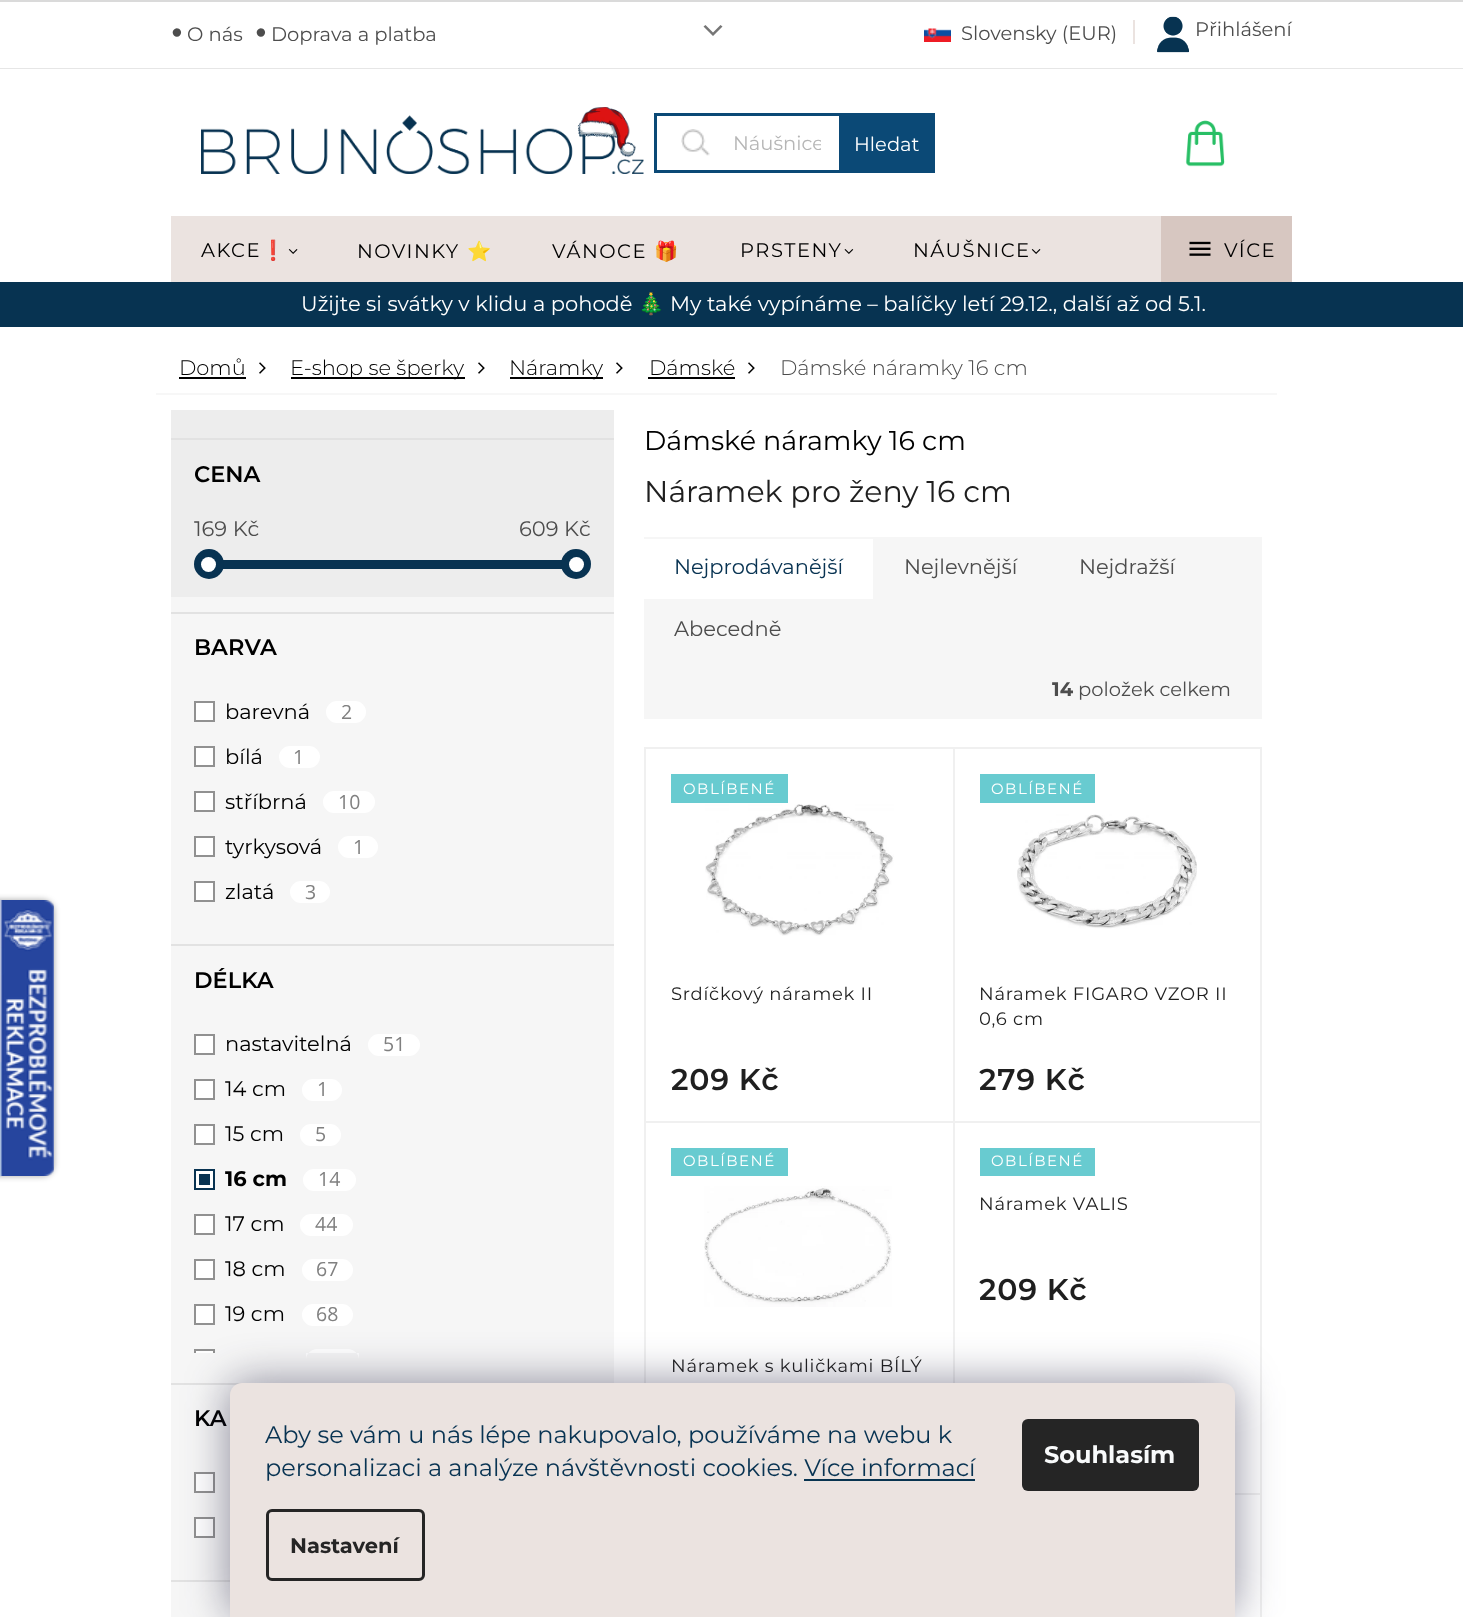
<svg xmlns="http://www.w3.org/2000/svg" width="1484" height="1617">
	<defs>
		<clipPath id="clip1"><path d="M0 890H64V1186H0ZM-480 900H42C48.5 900 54 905.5 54 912V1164C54 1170.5 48.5 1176 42 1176H-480Z" clip-rule="evenodd" /></clipPath>
		<clipPath id="clip2"><rect x="734" y="131" width="87" height="24" /></clipPath>
		<clipPath id="clip3"><rect x="171" y="1022" width="420" height="331" /></clipPath>
		<clipPath id="clip4"><rect x="980" y="983" width="255" height="67" /></clipPath>
	</defs>
	<rect width="100%" height="100%" fill="#FFFFFF" />
	<g clip-path="url(#clip1)">
		<rect x="-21" y="900" width="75" height="276" rx="12" fill="#000000" fill-opacity="0.35" filter="blur(3px)" />
	</g>
	<image x="0" y="900" width="54" height="276" href="assets/img1.png" />
	<rect x="0" y="0" width="1463" height="2" fill="#DADADA" />
	<rect x="0" y="68" width="1463" height="1" fill="#E6E6E6" />
	<text x="171" y="38" font-family="Liberation Sans" font-size="19.5" fill="#4D4D4D">●</text>
	<text x="187" y="41" font-family="Montserrat" font-size="19.5" fill="#4D4D4D">O nás</text>
	<text x="255" y="38" font-family="Liberation Sans" font-size="19.5" fill="#4D4D4D">●</text>
	<text x="271" y="41" font-family="Montserrat" font-size="19.5" fill="#4D4D4D">Doprava a platba</text>
	<path d="M703.5 26.5L705.5 25L713 32.5L720.5 25L722.5 26.5L713 36Z" fill="#767676" />
	<image x="924" y="28" width="27" height="14" href="assets/img2.png" />
	<text x="961" y="40" font-family="Montserrat" font-size="19.5" fill="#4D4D4D">Slovensky (EUR)</text>
	<rect x="1133" y="20" width="2" height="24" fill="#EBE3E0" />
	<image x="1157" y="16" width="32" height="37" href="assets/img3.png" />
	<text x="1195" y="36" font-family="Montserrat" font-size="19.5" fill="#4D4D4D">Přihlášení</text>
	<image x="201" y="107" width="443" height="67" href="assets/img4.png" />
	<image x="681" y="129" width="29" height="27" href="assets/img5.png" />
	<rect x="655.5" y="114.5" width="278" height="57" fill="none" stroke="#0B4976" stroke-width="3" />
	<g clip-path="url(#clip2)">
		<text x="733" y="150" font-family="Montserrat" font-size="19.5" fill="#B6B6B6">Náušnice</text>
	</g>
	<rect x="839" y="116" width="93" height="54" fill="#0B4976" />
	<text x="854" y="151" font-family="Montserrat" font-size="19.5" fill="#FFFFFF">Hledat</text>
	<image x="1185" y="120" width="40" height="47" href="assets/img6.png" />
	<rect x="171" y="216" width="990" height="66" fill="#EBE3E0" />
	<text x="201" y="257" font-family="Montserrat" font-size="19.5" letter-spacing="1.5" fill="#000000">AKCE</text>
	<text x="261" y="257" font-family="Noto Color Emoji" font-size="19.5" letter-spacing="1.5" fill="#000000">❗</text>
	<image x="288" y="249" width="10" height="5" href="assets/img7.png" />
	<text x="357" y="258" font-family="Montserrat" font-size="19.5" letter-spacing="1.5" fill="#000000">NOVINKY</text>
	<text x="467" y="258" font-family="Noto Color Emoji" font-size="19.5" letter-spacing="1.5" fill="#000000">⭐</text>
	<text x="552" y="258" font-family="Montserrat" font-size="19.5" letter-spacing="1.5" fill="#000000">VÁNOCE</text>
	<text x="654" y="258" font-family="Noto Color Emoji" font-size="19.5" letter-spacing="1.5" fill="#000000">🎁</text>
	<text x="740" y="257" font-family="Montserrat" font-size="19.5" letter-spacing="1.5" fill="#000000">PRSTENY</text>
	<image x="844" y="249" width="10" height="5" href="assets/img8.png" />
	<text x="913" y="257" font-family="Montserrat" font-size="19.5" letter-spacing="1.5" fill="#000000">NÁUŠNICE</text>
	<image x="1031" y="249" width="10" height="5" href="assets/img9.png" />
	<rect x="1161" y="216" width="131" height="66" fill="#D7C7C1" />
	<image x="1189" y="241" width="22" height="15" href="assets/img10.png" />
	<text x="1224" y="257" font-family="Montserrat" font-size="19.5" letter-spacing="1.5" fill="#000000">VÍCE</text>
	<rect x="0" y="282" width="1463" height="45" fill="#073351" />
	<text x="301" y="311" font-family="Montserrat" font-size="21" fill="#FFFFFF">Užijte si svátky v klidu a pohodě</text>
	<text x="638" y="311" font-family="Noto Color Emoji" font-size="21" fill="#FFFFFF">🎄</text>
	<text x="670" y="311" font-family="Montserrat" font-size="21" fill="#FFFFFF">My také vypínáme – balíčky letí 29.12., další až od 5.1.</text>
	<rect x="156" y="393" width="1121" height="2" fill="#F7F7F7" />
	<text x="179" y="375" font-family="Montserrat" font-size="21" font-weight="300" fill="#000000">Domů</text>
	<rect x="179" y="377" width="67" height="2" fill="#000000" />
	<image x="259" y="362" width="7" height="12" href="assets/img11.png" />
	<rect x="291" y="377" width="174" height="2" fill="#000000" />
	<text x="290" y="375" font-family="Montserrat" font-size="21" font-weight="300" fill="#000000">E-shop se šperky</text>
	<image x="478" y="362" width="7" height="12" href="assets/img11.png" />
	<rect x="510" y="377" width="93" height="2" fill="#000000" />
	<text x="509" y="375" font-family="Montserrat" font-size="21" font-weight="300" fill="#000000">Náramky</text>
	<image x="616" y="362" width="7" height="12" href="assets/img11.png" />
	<text x="649" y="375" font-family="Montserrat" font-size="21" font-weight="300" fill="#000000">Dámské</text>
	<rect x="648" y="377" width="87" height="2" fill="#000000" />
	<image x="748" y="362" width="7" height="12" href="assets/img11.png" />
	<text x="780" y="375" font-family="Montserrat" font-size="21" font-weight="300" fill="#4D4D4D">Dámské náramky 16 cm</text>
	<rect x="171" y="410" width="443" height="187" fill="#EDEDED" />
	<rect x="171" y="438" width="443" height="2" fill="#E2E2E2" />
	<text x="194" y="482" font-family="Montserrat" font-size="22.5" font-weight="600" fill="#000000">CENA</text>
	<g font-family="Montserrat" font-size="21" fill="#4D4D4D">
		<text x="194" y="536">169 Kč</text>
		<text x="519" y="536">609 Kč</text>
	</g>
	<rect x="194" y="560" width="397" height="9" fill="#DADADA" />
	<rect x="223" y="560" width="339" height="9" fill="#083352" />
	<circle cx="209" cy="564" r="15" fill="#083352" />
	<circle cx="208.5" cy="564.5" r="7.5" fill="#FFFFFF" />
	<circle cx="576" cy="564" r="15" fill="#083352" />
	<circle cx="576.5" cy="564.5" r="7.5" fill="#FFFFFF" />
	<rect x="171" y="597" width="443" height="1020" fill="#F6F6F6" />
	<rect x="171" y="612" width="443" height="2" fill="#E2E2E2" />
	<text x="194" y="655" font-family="Montserrat" font-size="22.5" font-weight="600" fill="#000000">BARVA</text>
	<rect x="195" y="702" width="19" height="19" fill="#FFFFFF" stroke="#919191" stroke-width="2" />
	<text x="225" y="719" font-family="Montserrat" font-size="21" fill="#000000">barevná</text>
	<rect x="326" y="701" width="40" height="22" rx="11" fill="#FFFFFF" />
	<text x="341" y="719" font-family="Open Sans" font-size="19.5" fill="#808080">2</text>
	<rect x="195" y="747" width="19" height="19" fill="#FFFFFF" stroke="#919191" stroke-width="2" />
	<text x="225" y="764" font-family="Montserrat" font-size="21" fill="#000000">bílá</text>
	<rect x="279" y="746" width="41" height="22" rx="11" fill="#FFFFFF" />
	<text x="293" y="764" font-family="Open Sans" font-size="19.5" fill="#808080">1</text>
	<rect x="195" y="792" width="19" height="19" fill="#FFFFFF" stroke="#919191" stroke-width="2" />
	<text x="225" y="809" font-family="Montserrat" font-size="21" fill="#000000">stříbrná</text>
	<rect x="323" y="791" width="52" height="22" rx="11" fill="#FFFFFF" />
	<text x="338" y="809" font-family="Open Sans" font-size="19.5" fill="#808080">10</text>
	<rect x="195" y="837" width="19" height="19" fill="#FFFFFF" stroke="#919191" stroke-width="2" />
	<text x="225" y="854" font-family="Montserrat" font-size="21" fill="#000000">tyrkysová</text>
	<rect x="338" y="836" width="40" height="22" rx="11" fill="#FFFFFF" />
	<text x="353" y="854" font-family="Open Sans" font-size="19.5" fill="#808080">1</text>
	<rect x="195" y="882" width="19" height="19" fill="#FFFFFF" stroke="#919191" stroke-width="2" />
	<text x="225" y="899" font-family="Montserrat" font-size="21" fill="#000000">zlatá</text>
	<rect x="290" y="881" width="40" height="22" rx="11" fill="#FFFFFF" />
	<text x="305" y="899" font-family="Open Sans" font-size="19.5" fill="#808080">3</text>
	<rect x="171" y="944" width="443" height="2" fill="#E2E2E2" />
	<text x="194" y="988" font-family="Montserrat" font-size="22.5" font-weight="600" fill="#000000">DÉLKA</text>
	<rect x="195" y="1035" width="19" height="19" fill="#FFFFFF" stroke="#919191" stroke-width="2" />
	<text x="225" y="1051" font-family="Montserrat" font-size="21" fill="#000000">nastavitelná</text>
	<rect x="368" y="1034" width="52" height="22" rx="11" fill="#FFFFFF" />
	<text x="383" y="1051" font-family="Open Sans" font-size="19.5" fill="#808080">51</text>
	<rect x="195" y="1080" width="19" height="19" fill="#FFFFFF" stroke="#919191" stroke-width="2" />
	<text x="225" y="1096" font-family="Montserrat" font-size="21" fill="#000000">14 cm</text>
	<rect x="302" y="1079" width="40" height="22" rx="11" fill="#FFFFFF" />
	<text x="317" y="1096" font-family="Open Sans" font-size="19.5" fill="#808080">1</text>
	<rect x="195" y="1125" width="19" height="19" fill="#FFFFFF" stroke="#919191" stroke-width="2" />
	<text x="225" y="1141" font-family="Montserrat" font-size="21" fill="#000000">15 cm</text>
	<rect x="300" y="1124" width="41" height="22" rx="11" fill="#FFFFFF" />
	<text x="315" y="1141" font-family="Open Sans" font-size="19.5" fill="#808080">5</text>
	<rect x="195" y="1170" width="19" height="19" fill="#FFFFFF" stroke="#083352" stroke-width="2" />
	<text x="225" y="1186" font-family="Montserrat" font-size="21" font-weight="700" fill="#000000">16 cm</text>
	<rect x="303" y="1169" width="53" height="22" rx="11" fill="#FFFFFF" />
	<text x="318" y="1186" font-family="Open Sans" font-size="19.5" fill="#808080">14</text>
	<rect x="199" y="1174" width="11" height="11" fill="#083352" />
	<rect x="195" y="1215" width="19" height="19" fill="#FFFFFF" stroke="#919191" stroke-width="2" />
	<text x="225" y="1231" font-family="Montserrat" font-size="21" fill="#000000">17 cm</text>
	<rect x="300" y="1214" width="53" height="22" rx="11" fill="#FFFFFF" />
	<text x="315" y="1231" font-family="Open Sans" font-size="19.5" fill="#808080">44</text>
	<rect x="195" y="1260" width="19" height="19" fill="#FFFFFF" stroke="#919191" stroke-width="2" />
	<text x="225" y="1276" font-family="Montserrat" font-size="21" fill="#000000">18 cm</text>
	<rect x="302" y="1259" width="51" height="22" rx="11" fill="#FFFFFF" />
	<text x="316" y="1276" font-family="Open Sans" font-size="19.5" fill="#808080">67</text>
	<rect x="195" y="1305" width="19" height="19" fill="#FFFFFF" stroke="#919191" stroke-width="2" />
	<text x="225" y="1321" font-family="Montserrat" font-size="21" fill="#000000">19 cm</text>
	<rect x="302" y="1304" width="51" height="22" rx="11" fill="#FFFFFF" />
	<text x="316" y="1321" font-family="Open Sans" font-size="19.5" fill="#808080">68</text>
	<rect x="194" y="1351" width="21" height="2" fill="#FFFFFF" />
	<g clip-path="url(#clip3)">
		<rect x="195" y="1350" width="19" height="19" fill="none" stroke="#919191" stroke-width="2" />
	</g>
	<path d="M317 1349H348C354 1349 359 1354 359 1360V1353H306V1360C306 1354 311 1349 317 1349Z" fill="#FFFFFF" />
	<rect x="171" y="1383" width="71" height="2" fill="#E2E2E2" />
	<text x="194" y="1426" font-family="Montserrat" font-size="22.5" font-weight="600" fill="#000000">KA</text>
	<rect x="195" y="1473" width="19" height="19" fill="#FFFFFF" stroke="#919191" stroke-width="2" />
	<rect x="195" y="1518" width="19" height="19" fill="#FFFFFF" stroke="#919191" stroke-width="2" />
	<rect x="171" y="1580" width="59" height="2" fill="#E2E2E2" />
	<text x="644" y="450" font-family="Montserrat" font-size="27" fill="#000000">Dámské náramky 16 cm</text>
	<text x="644" y="502" font-family="Montserrat" font-size="30" fill="#1F1F1F">Náramek pro ženy 16 cm</text>
	<rect x="644" y="537" width="618" height="182" fill="#F6F6F6" />
	<rect x="644" y="539" width="229" height="60" fill="#FFFFFF" />
	<text x="674" y="574" font-family="Montserrat" font-size="21" fill="#083352">Nejprodávanější</text>
	<g font-family="Montserrat" font-size="21" fill="#4D4D4D">
		<text x="904" y="574">Nejlevnější</text>
		<text x="1079" y="574">Nejdražší</text>
		<text x="674" y="636">Abecedně</text>
	</g>
	<text x="1052" y="696" font-family="Montserrat" font-size="19.5" font-weight="700" fill="#4D4D4D">14</text>
	<text x="1078" y="696" font-family="Montserrat" font-size="19.5" fill="#4D4D4D">položek celkem</text>
	<rect x="644" y="747" width="618" height="2" fill="#F0F0F0" />
	<rect x="644" y="747" width="2" height="636" fill="#F0F0F0" />
	<rect x="953" y="749" width="2" height="373" fill="#F0F0F0" />
	<rect x="645" y="1121" width="309" height="2" fill="#F0F0F0" />
	<rect x="671" y="774" width="117" height="29" fill="#68CBD0" />
	<text x="683" y="794" font-family="Montserrat" font-size="15" letter-spacing="1.5" fill="#FFFFFF">OBLÍBENÉ</text>
	<image x="705" y="804" width="189" height="132" href="assets/img12.png" />
	<text x="671" y="1000" font-family="Montserrat" font-size="18" letter-spacing="0.75" fill="#1F1F1F">Srdíčkový náramek II</text>
	<text x="671" y="1090" font-family="Montserrat" font-size="30" font-weight="600" letter-spacing="0.75" fill="#1F1F1F">209 Kč</text>
	<rect x="1260" y="749" width="2" height="373" fill="#F0F0F0" />
	<rect x="954" y="1121" width="308" height="2" fill="#F0F0F0" />
	<rect x="980" y="774" width="115" height="29" fill="#68CBD0" />
	<text x="991" y="794" font-family="Montserrat" font-size="15" letter-spacing="1.5" fill="#FFFFFF">OBLÍBENÉ</text>
	<image x="1017" y="814" width="180" height="115" href="assets/img13.png" />
	<text x="979" y="1000" font-family="Montserrat" font-size="18" letter-spacing="0.75" fill="#1F1F1F">Náramek FIGARO VZOR II</text>
	<g clip-path="url(#clip4)">
		<text x="979" y="1025" font-family="Montserrat" font-size="18" letter-spacing="0.75" fill="#1F1F1F">0,6 cm</text>
	</g>
	<text x="979" y="1090" font-family="Montserrat" font-size="30" font-weight="600" letter-spacing="0.75" fill="#1F1F1F">279 Kč</text>
	<rect x="953" y="1122" width="2" height="261" fill="#F0F0F0" />
	<rect x="671" y="1148" width="117" height="28" fill="#68CBD0" />
	<text x="683" y="1166" font-family="Montserrat" font-size="15" letter-spacing="1.5" fill="#FFFFFF">OBLÍBENÉ</text>
	<image x="704" y="1186" width="188" height="121" href="assets/img14.png" />
	<text x="671" y="1372" font-family="Montserrat" font-size="18" letter-spacing="0.75" fill="#1F1F1F">Náramek s kuličkami BÍLÝ</text>
	<rect x="1260" y="1122" width="2" height="372" fill="#F0F0F0" />
	<rect x="1235" y="1493" width="27" height="2" fill="#F0F0F0" />
	<rect x="980" y="1148" width="115" height="28" fill="#68CBD0" />
	<text x="991" y="1166" font-family="Montserrat" font-size="15" letter-spacing="1.5" fill="#FFFFFF">OBLÍBENÉ</text>
	<text x="979" y="1210" font-family="Montserrat" font-size="18" letter-spacing="0.75" fill="#1F1F1F">Náramek VALIS</text>
	<text x="979" y="1300" font-family="Montserrat" font-size="30" font-weight="600" letter-spacing="0.75" fill="#1F1F1F">209 Kč</text>
	<rect x="1260" y="1494" width="2" height="123" fill="#F0F0F0" />
	<rect x="230" y="1383" width="1005" height="234" rx="12" fill="#1B1939" fill-opacity="0.5" filter="blur(22.5px)" />
	<path d="M242 1383H1223C1229.5 1383 1235 1388.5 1235 1395V1617H230V1395C230 1388.5 235.5 1383 242 1383Z" fill="#EBE3E0" />
	<g font-family="Montserrat" font-size="24" fill="#083352">
		<text x="265" y="1443">Aby se vám u nás lépe nakupovalo, používáme na webu k</text>
		<text x="265" y="1476">personalizaci a analýze návštěvnosti cookies. Více informací</text>
	</g>
	<rect x="804" y="1479" width="171" height="2" fill="#073350" />
	<rect x="267.5" y="1510.5" width="156" height="69" rx="4.5" fill="none" stroke="#252525" stroke-width="3" />
	<text x="290" y="1553" font-family="Montserrat" font-size="21" font-weight="700" fill="#252525">Nastavení</text>
	<rect x="1022" y="1419" width="177" height="72" rx="6" fill="#252525" />
	<text x="1044" y="1463" font-family="Montserrat" font-size="24" font-weight="700" fill="#F8FAFB">Souhlasím</text>
</svg>
